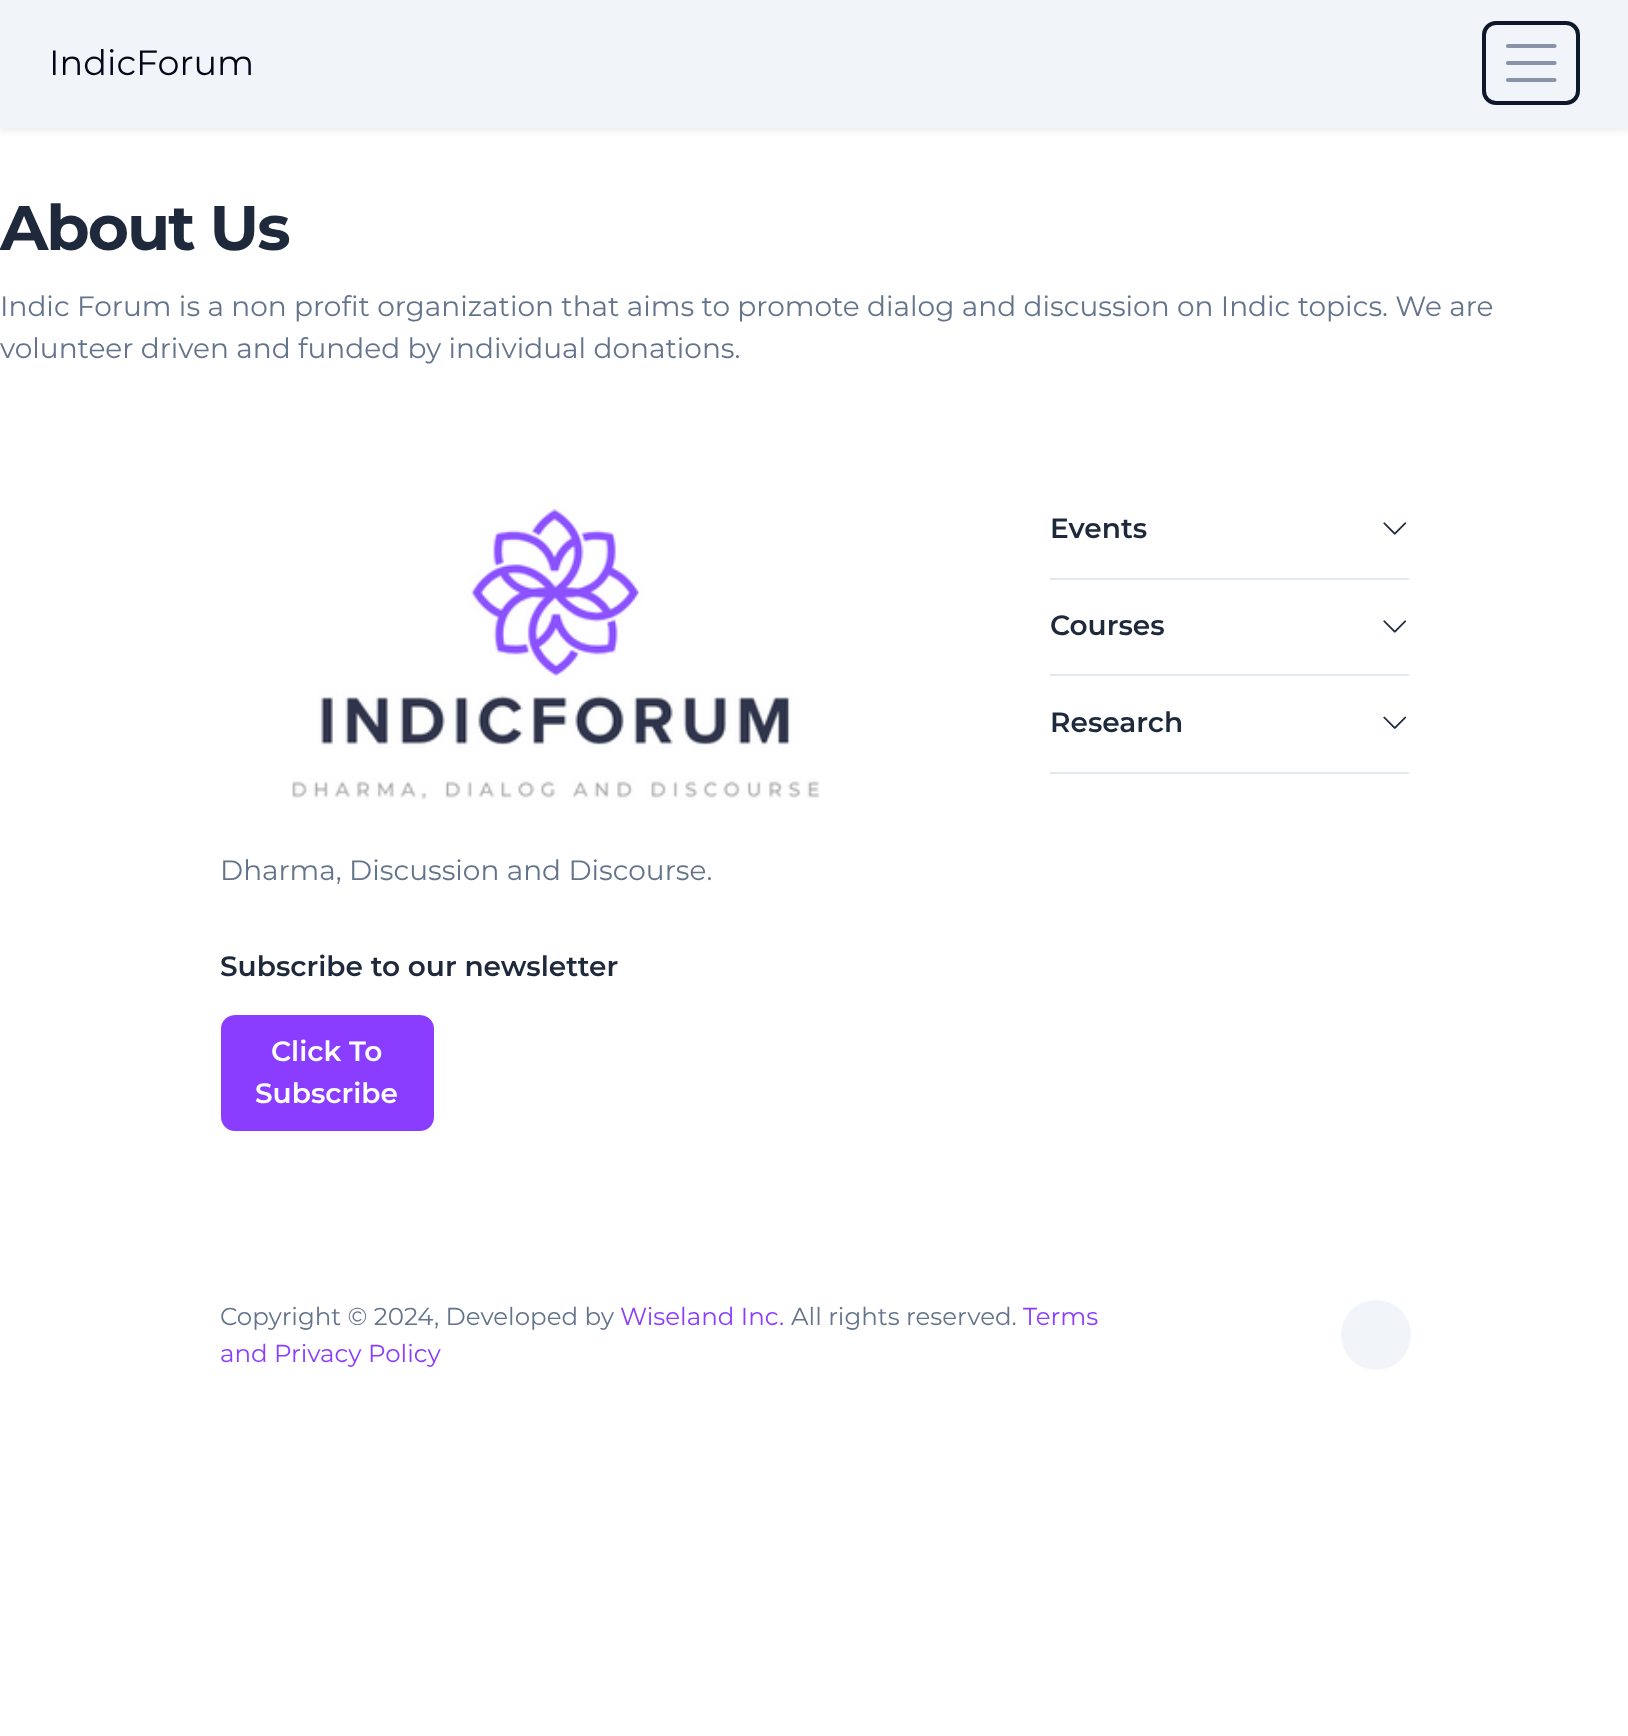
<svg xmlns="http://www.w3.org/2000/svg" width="1628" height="1736">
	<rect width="100%" height="100%" fill="#FFFFFF" />
	<rect x="0" y="4" width="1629" height="127" fill="#020617" fill-opacity="0.07" filter="blur(3.5px)" />
	<rect x="0" y="0" width="1628" height="128" fill="#F1F5F9" />
	<text x="49" y="75" font-family="Montserrat" font-size="35" fill="#020617">IndicForum</text>
	<rect x="1484" y="23" width="94" height="80" rx="12" fill="none" stroke="#0F172A" stroke-width="4" />
	<path d="M1508 46H1554.5M1508 63H1554.5M1508 80H1554.5" fill="none" stroke="#8794A7" stroke-width="4.2" stroke-linecap="round" />
	<text x="0" y="250" font-family="Montserrat" font-size="63" font-weight="700" letter-spacing="-2" fill="#1E293B">About Us</text>
	<g font-family="Montserrat" font-size="28" fill="#64748B">
		<text x="0" y="316">Indic Forum is a non profit organization that aims to promote dialog and discussion on Indic topics. We are</text>
		<text x="0" y="358">volunteer driven and funded by individual donations.</text>
	</g>
	<rect x="1050" y="578" width="359" height="2" fill="#E2E8F0" />
	<text x="1050" y="538" font-family="Montserrat" font-size="28" font-weight="600" fill="#1E293B">Events</text>
	<image x="1383" y="522" width="24" height="13" href="assets/img1.png" />
	<rect x="1050" y="674" width="359" height="2" fill="#E2E8F0" />
	<text x="1050" y="635" font-family="Montserrat" font-size="28" font-weight="600" fill="#1E293B">Courses</text>
	<image x="1383" y="620" width="24" height="13" href="assets/img1.png" />
	<rect x="1050" y="772" width="359" height="2" fill="#E2E8F0" />
	<text x="1050" y="732" font-family="Montserrat" font-size="28" font-weight="600" fill="#1E293B">Research</text>
	<image x="1383" y="716" width="24" height="13" href="assets/img2.png" />
	<image x="292" y="509" width="528" height="291" href="assets/img3.png" />
	<text x="220" y="880" font-family="Montserrat" font-size="28" fill="#64748B">Dharma, Discussion and Discourse.</text>
	<text x="220" y="976" font-family="Montserrat" font-size="28" font-weight="600" fill="#1E293B">Subscribe to our newsletter</text>
	<rect x="222" y="1016" width="211" height="114" rx="13" fill="#8B3DFF" stroke="#8B3DFF" stroke-width="2" />
	<g font-family="Montserrat" font-size="28" font-weight="600" fill="#FFFFFF">
		<text x="271" y="1061">Click To</text>
		<text x="255" y="1103">Subscribe</text>
	</g>
	<text x="220" y="1325" font-family="Montserrat" font-size="24.5" fill="#64748B">Copyright © 2024, Developed by</text>
	<text x="620" y="1325" font-family="Montserrat" font-size="24.5" fill="#8B3DFF">Wiseland Inc.</text>
	<text x="791" y="1325" font-family="Montserrat" font-size="24.5" fill="#64748B">All rights reserved.</text>
	<g font-family="Montserrat" font-size="24.5" fill="#8B3DFF">
		<text x="1023" y="1325">Terms</text>
		<text x="220" y="1362">and Privacy Policy</text>
	</g>
	<circle cx="1376" cy="1335" r="34" fill="#F1F5F9" stroke="#F1F5F9" stroke-width="2" />
</svg>
